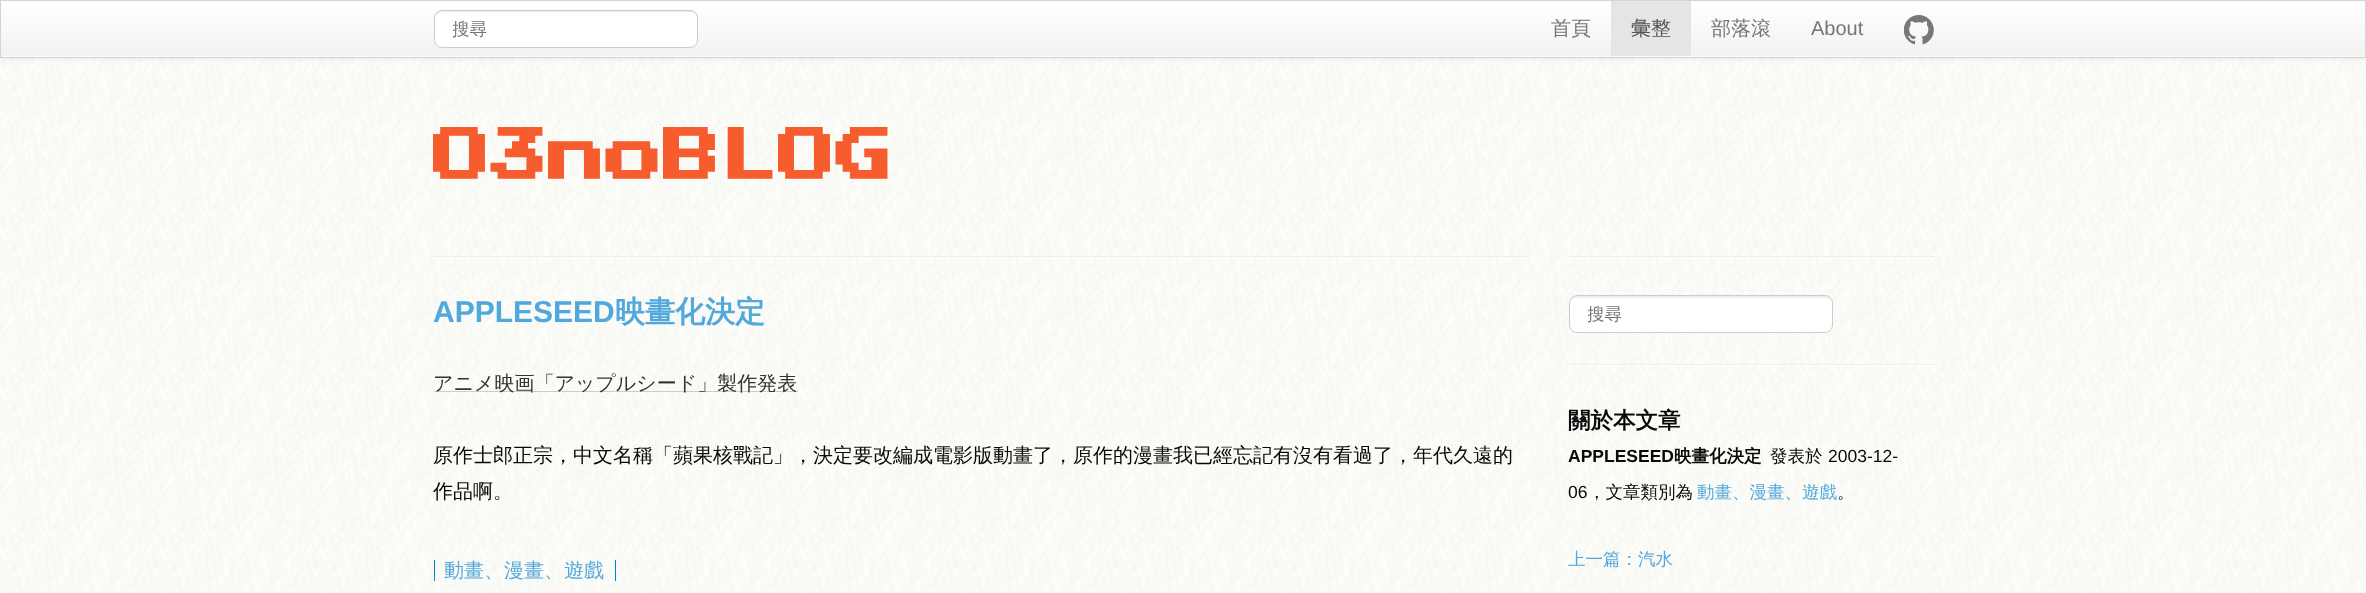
<svg xmlns="http://www.w3.org/2000/svg" width="2366" height="593">
	<defs>
		<linearGradient id="g1" gradientUnits="userSpaceOnUse" x1="1183" y1="1.2" x2="1183" y2="56"><stop offset="0" stop-color="#FFFFFF" /><stop offset="1" stop-color="#F2F2F2" /></linearGradient>
		<clipPath id="clip1"><rect x="453" y="19" width="208" height="22" /></clipPath>
		<clipPath id="clip2"><rect x="1588" y="304" width="208" height="22" /></clipPath>
	</defs>
	<rect width="100%" height="100%" fill="#FFFFFF" />
	<image x="0" y="58" width="2366" height="535" href="assets/img1.png" />
	<rect x="0" y="1" width="2366" height="58" fill="#000000" fill-opacity="0.07" filter="blur(2.5px)" />
	<rect x="1" y="56" width="2364" height="1" fill="#FAFAFA" />
	<rect x="1" y="1" width="2364" height="55" fill="url(#g1)" />
	<rect x="0.5" y="0.5" width="2365" height="57" fill="none" stroke="#D4D4D4" />
	<rect x="434" y="10" width="264" height="38" rx="8" fill="#FFFFFF" />
	<path d="M441 12H690C693 12 696 15 696 19C696 16 695 12 691 11H440C436 12 435 16 435 19C435 15 438 12 441 12Z" fill="#ECECEC" />
	<rect x="434.5" y="10.5" width="263" height="37" rx="7.5" fill="none" stroke="#CCCCCC" />
	<g clip-path="url(#clip1)">
		<text x="452" y="35" font-family="WenQuanYi Zen Hei" font-size="17.5" font-weight="500" fill="#757575">搜尋</text>
	</g>
	<text x="1551" y="35" font-family="WenQuanYi Zen Hei" font-size="20" font-weight="500" fill="#757575">首頁</text>
	<rect x="1611" y="1" width="80" height="55" fill="#E5E5E5" />
	<text x="1631" y="35" font-family="WenQuanYi Zen Hei" font-size="20" font-weight="500" fill="#555555">彙整</text>
	<text x="1711" y="35" font-family="WenQuanYi Zen Hei" font-size="20" font-weight="500" fill="#757575">部落滾</text>
	<text x="1811" y="35" font-family="Liberation Sans" font-size="20" fill="#757575">About</text>
	<image x="1904" y="15" width="30" height="30" href="assets/img2.png" />
	<text x="433" y="186" font-family="'Press Start 2P'" font-size="57.5" font-weight="700" fill="#F75C2F">O3noBLOG</text>
	<rect x="434" y="256" width="1095" height="1" fill="#EEEEEE" />
	<rect x="434" y="258" width="1095" height="1" fill="#FFFFFF" />
	<text x="433" y="322" font-family="Liberation Sans" font-size="30" font-weight="700" fill="#51A8DD">APPLESEED</text>
	<text x="615" y="322" font-family="WenQuanYi Zen Hei" font-size="30" font-weight="700" fill="#51A8DD">映畫化決定</text>
	<rect x="434" y="391" width="364" height="1" fill="#CCCCCC" />
	<text x="433" y="390" font-family="WenQuanYi Zen Hei" font-size="20" font-weight="500" fill="#333333">アニメ映画「アップルシード」製作発表</text>
	<g font-family="WenQuanYi Zen Hei" font-size="20" font-weight="500" fill="#080808">
		<text x="433" y="462">原作士郎正宗，中文名稱「蘋果核戰記」，決定要改編成電影版動畫了，原作的漫畫我已經忘記有沒有看過了，年代久遠的</text>
		<text x="433" y="498">作品啊。</text>
	</g>
	<text x="444" y="577" font-family="WenQuanYi Zen Hei" font-size="20" font-weight="500" fill="#51A8DD">動畫、漫畫、遊戲</text>
	<rect x="615" y="560" width="1" height="21" fill="#0088CC" />
	<rect x="434" y="560" width="1" height="21" fill="#0088CC" />
	<rect x="1569" y="256" width="365" height="1" fill="#EEEEEE" />
	<rect x="1569" y="258" width="365" height="1" fill="#FFFFFF" />
	<rect x="1569" y="295" width="264" height="38" rx="8" fill="#FFFFFF" />
	<path d="M1576 298H1825C1828 298 1831 300 1831 304C1831 301 1830 297 1826 296H1575C1571 297 1570 301 1570 304C1570 300 1573 298 1576 298Z" fill="#ECECEC" />
	<rect x="1569.5" y="295.5" width="263" height="37" rx="7.5" fill="none" stroke="#CCCCCC" />
	<g clip-path="url(#clip2)">
		<text x="1587" y="320" font-family="WenQuanYi Zen Hei" font-size="17.5" font-weight="500" fill="#757575">搜尋</text>
	</g>
	<rect x="1569" y="364" width="365" height="1" fill="#EEEEEE" />
	<rect x="1569" y="365" width="365" height="1" fill="#FFFFFF" />
	<text x="1568" y="428" font-family="WenQuanYi Zen Hei" font-size="22.5" font-weight="700" fill="#080808">關於本文章</text>
	<text x="1568" y="462" font-family="Liberation Sans" font-size="17.5" font-weight="700" fill="#080808">APPLESEED</text>
	<text x="1674" y="462" font-family="WenQuanYi Zen Hei" font-size="17.5" font-weight="700" fill="#080808">映畫化決定</text>
	<text x="1770" y="462" font-family="WenQuanYi Zen Hei" font-size="17.5" font-weight="500" fill="#080808">發表於</text>
	<g font-family="Liberation Sans" font-size="17.5" fill="#080808">
		<text x="1828" y="462">2003-12-</text>
		<text x="1568" y="498">06</text>
	</g>
	<text x="1588" y="498" font-family="WenQuanYi Zen Hei" font-size="17.5" font-weight="500" fill="#080808">，文章類別為</text>
	<text x="1697" y="498" font-family="WenQuanYi Zen Hei" font-size="17.5" font-weight="500" fill="#51A8DD">動畫、漫畫、遊戲</text>
	<text x="1837" y="498" font-family="WenQuanYi Zen Hei" font-size="17.5" font-weight="500" fill="#080808">。</text>
	<text x="1568" y="565" font-family="WenQuanYi Zen Hei" font-size="17.5" font-weight="500" fill="#51A8DD">上一篇：汽水</text>
</svg>
